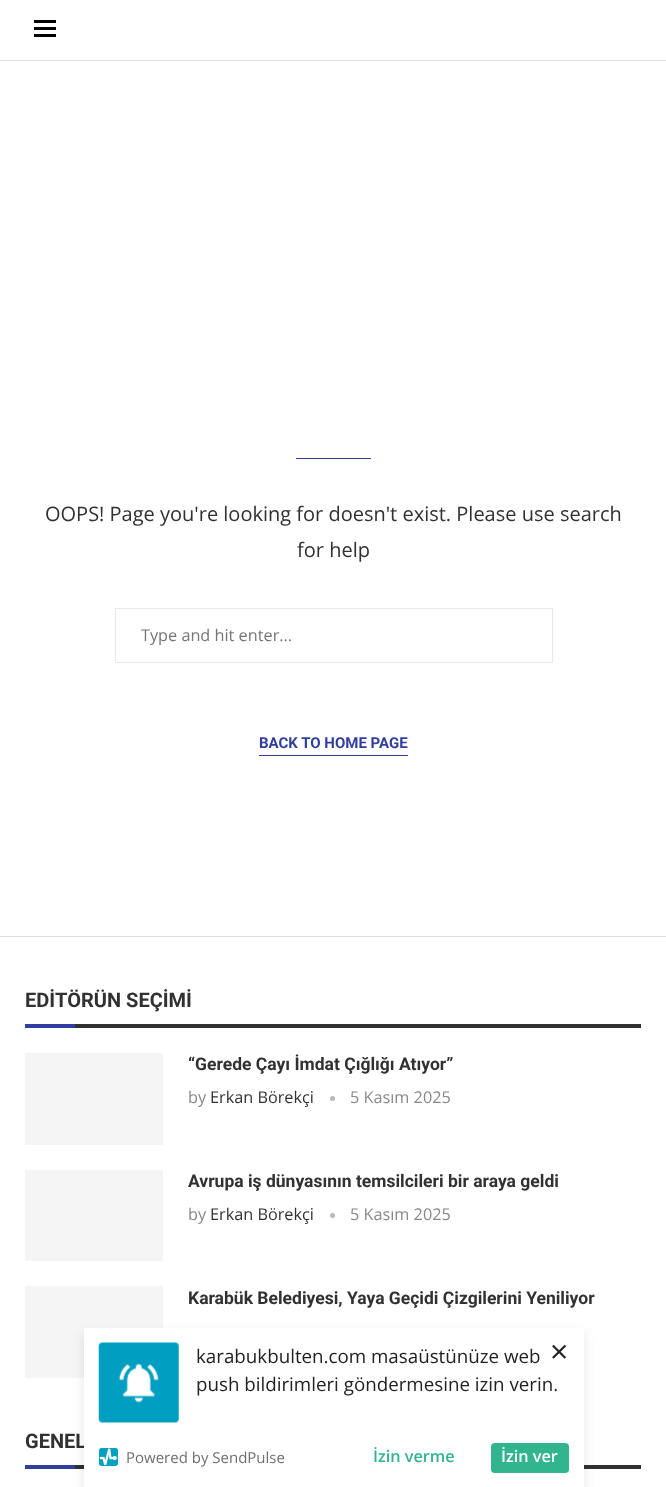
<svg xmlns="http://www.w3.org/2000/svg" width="666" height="1487">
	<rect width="100%" height="100%" fill="#FFFFFF" />
	<rect x="0" y="60" width="666" height="1" fill="#DEDEDE" />
	<rect x="34" y="20" width="22" height="3" fill="#000000" />
	<rect x="34" y="27" width="22" height="3" fill="#000000" />
	<rect x="34" y="34" width="22" height="3" fill="#000000" />
	<rect x="296" y="458" width="75" height="1" fill="#303F9F" />
	<g font-family="Open Sans" font-size="20" fill="#313131">
		<text x="45" y="521">OOPS! Page you're looking for doesn't exist. Please use search</text>
		<text x="297" y="557">for help</text>
	</g>
	<rect x="115.5" y="608.5" width="437" height="54" fill="none" stroke="#E9E9E9" />
	<text x="141" y="641" font-family="Open Sans" font-size="16.25" fill="#757575">Type and hit enter...</text>
	<text x="259" y="748" font-family="Roboto" font-size="15" font-weight="700" fill="#303F9F">BACK TO HOME PAGE</text>
	<rect x="259" y="755" width="149" height="1" fill="#303F9F" />
	<rect x="0" y="936" width="666" height="1" fill="#DEDEDE" />
	<rect x="75" y="1024" width="566" height="4" fill="#313131" />
	<text x="25" y="1007" font-family="Roboto" font-size="20" font-weight="700" fill="#313131">EDİTÖRÜN SEÇİMİ</text>
	<rect x="25" y="1024" width="50" height="4" fill="#303F9F" />
	<rect x="25" y="1053" width="138" height="92" fill="#F5F5F5" />
	<text x="188" y="1070" font-family="Roboto" font-size="17.5" font-weight="700" fill="#313131">“Gerede Çayı İmdat Çığlığı Atıyor”</text>
	<text x="188" y="1103" font-family="Open Sans" font-size="16.25" fill="#888888">by</text>
	<text x="210" y="1103" font-family="Open Sans" font-size="16.25" fill="#313131">Erkan Börekçi</text>
	<circle cx="332.5" cy="1098.5" r="2.5" fill="#B8B8B8" />
	<text x="350" y="1103" font-family="Open Sans" font-size="16.25" fill="#888888">5 Kasım 2025</text>
	<rect x="25" y="1170" width="138" height="91" fill="#F5F5F5" />
	<text x="188" y="1187" font-family="Roboto" font-size="17.5" font-weight="700" fill="#313131">Avrupa iş dünyasının temsilcileri bir araya geldi</text>
	<text x="188" y="1220" font-family="Open Sans" font-size="16.25" fill="#888888">by</text>
	<text x="210" y="1220" font-family="Open Sans" font-size="16.25" fill="#313131">Erkan Börekçi</text>
	<circle cx="332.5" cy="1215.5" r="2.5" fill="#B8B8B8" />
	<text x="350" y="1220" font-family="Open Sans" font-size="16.25" fill="#888888">5 Kasım 2025</text>
	<rect x="25" y="1286" width="138" height="92" fill="#F5F5F5" />
	<text x="188" y="1304" font-family="Roboto" font-size="17.5" font-weight="700" fill="#313131">Karabük Belediyesi, Yaya Geçidi Çizgilerini Yeniliyor</text>
	<rect x="75" y="1465" width="566" height="4" fill="#313131" />
	<text x="25" y="1448" font-family="Roboto" font-size="20" font-weight="700" fill="#313131">GENEL</text>
	<rect x="25" y="1465" width="50" height="4" fill="#303F9F" />
	<rect x="84" y="1333" width="500" height="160" fill="#000000" fill-opacity="0.1" filter="blur(6px)" />
	<rect x="84" y="1328" width="500" height="159" fill="#FFFFFF" />
	<image x="98" y="1342" width="81" height="81" href="assets/img1.png" />
	<g font-family="Open Sans" font-size="18.75" fill="#222222">
		<text x="196" y="1363">karabukbulten.com masaüstünüze web</text>
		<text x="196" y="1391">push bildirimleri göndermesine izin verin.</text>
	</g>
	<image x="99" y="1448" width="19" height="18" href="assets/img2.png" />
	<text x="126" y="1463" font-family="Open Sans" font-size="15" fill="#6F6F6F">Powered by SendPulse</text>
	<text x="373" y="1462" font-family="Open Sans" font-size="16.25" font-weight="600" fill="#31B58E">İzin verme</text>
	<rect x="491" y="1443" width="78" height="30" rx="4" fill="#31B58E" />
	<text x="501" y="1462" font-family="Open Sans" font-size="16.25" font-weight="600" fill="#FFFFFF">İzin ver</text>
	<text x="550" y="1363" font-family="Open Sans" font-size="32" fill="#222222">×</text>
</svg>
